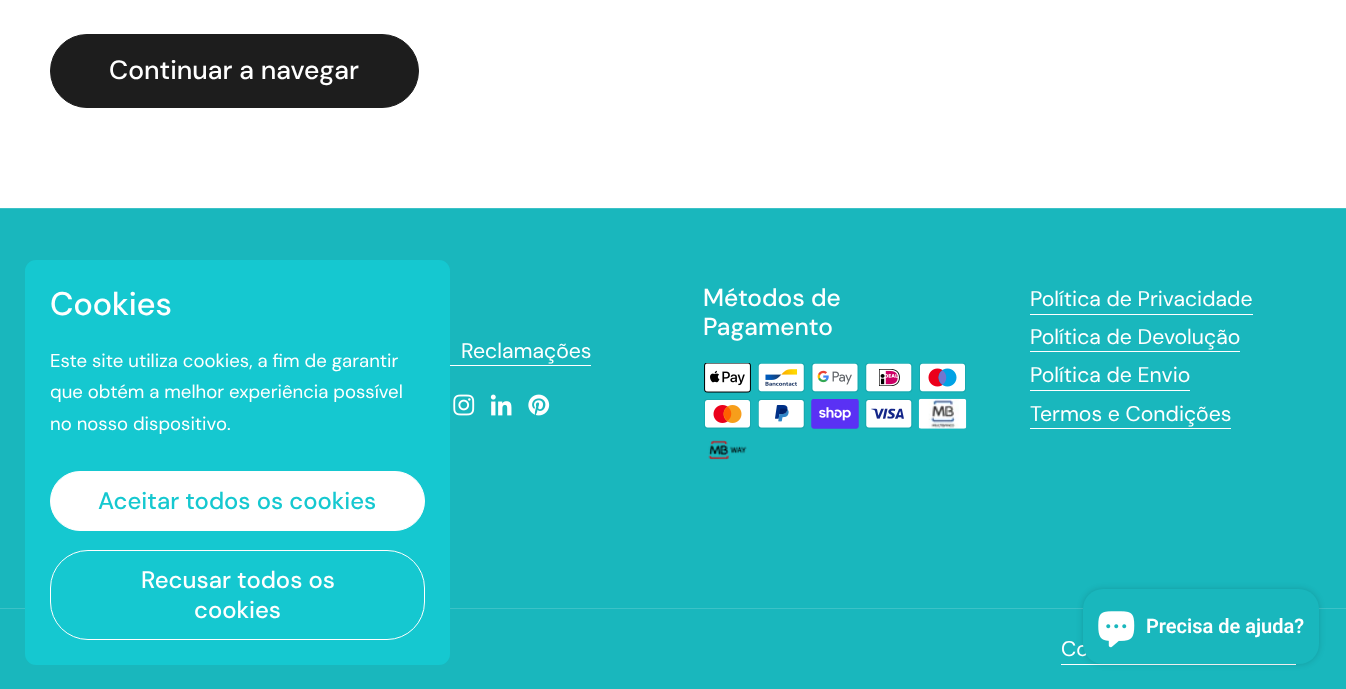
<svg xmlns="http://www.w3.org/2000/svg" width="1346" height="689">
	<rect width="100%" height="100%" fill="#FFFFFF" />
	<rect x="50.5" y="34.5" width="368" height="73" rx="36.5" fill="#1D1D1D" stroke="#1D1D1D" />
	<text x="109" y="79" font-family="DM Sans" font-size="26.5" font-weight="500" fill="#FFFFFF">Continuar a navegar</text>
	<rect x="0" y="209" width="1346" height="480" fill="#19B7BD" />
	<rect x="0" y="608" width="1346" height="1" fill="#3CC2C7" />
	<rect x="25" y="260" width="425" height="405" rx="11" fill="#15C8D0" />
	<text x="50" y="315" font-family="'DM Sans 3'" font-size="32.5" font-weight="500" fill="#FFFFFF">Cookies</text>
	<g font-family="'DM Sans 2'" font-size="18.6" fill="#FFFFFF">
		<text x="50" y="367">Este site utiliza cookies, a fim de garantir</text>
		<text x="50" y="398">que obtém a melhor experiência possível</text>
		<text x="50" y="430">no nosso dispositivo.</text>
	</g>
	<rect x="50.5" y="471.5" width="374" height="59" rx="29.5" fill="#FFFFFF" stroke="#FFFFFF" />
	<text x="98" y="509" font-family="'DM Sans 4'" font-size="23.9" font-weight="500" fill="#15C8D0">Aceitar todos os cookies</text>
	<rect x="50.5" y="550.5" width="374" height="89" rx="37.5" fill="none" stroke="#FFFFFF" />
	<g font-family="'DM Sans 4'" font-size="23.9" font-weight="500" fill="#FFFFFF">
		<text x="141" y="588">Recusar todos os</text>
		<text x="194" y="618">cookies</text>
	</g>
	<rect x="0" y="208" width="1346" height="1" fill="#3CC2C7" />
	<text x="461" y="358" font-family="DM Sans" font-size="21.25" fill="#FFFFFF">Reclamações</text>
	<rect x="450" y="365" width="141" height="1" fill="#FFFFFF" />
	<image x="453" y="394" width="22" height="22" href="assets/img1.png" />
	<image x="490" y="394" width="22" height="22" href="assets/img2.png" />
	<image x="528" y="394" width="22" height="22" href="assets/img3.png" />
	<g font-family="'DM Sans 2'" font-size="24.5" font-weight="500" fill="#FFFFFF">
		<text x="703" y="306">Métodos de</text>
		<text x="703" y="335">Pagamento</text>
	</g>
	<image x="704" y="363" width="47" height="30" href="assets/img4.png" />
	<image x="758" y="363" width="47" height="30" href="assets/img5.png" />
	<image x="811" y="363" width="48" height="30" href="assets/img6.png" />
	<image x="865" y="363" width="48" height="30" href="assets/img7.png" />
	<image x="919" y="363" width="47" height="30" href="assets/img8.png" />
	<image x="704" y="399" width="47" height="30" href="assets/img9.png" />
	<image x="758" y="399" width="47" height="30" href="assets/img10.png" />
	<image x="811" y="399" width="48" height="30" href="assets/img11.png" />
	<image x="865" y="399" width="48" height="30" href="assets/img12.png" />
	<image x="918" y="398" width="49" height="31" href="assets/img13.png" />
	<image x="708" y="440" width="39" height="20" href="assets/img14.png" />
	<text x="1030" y="306" font-family="DM Sans" font-size="21.25" fill="#FFFFFF">Política de Privacidade</text>
	<rect x="1030" y="314" width="223" height="1" fill="#FFFFFF" />
	<text x="1030" y="344" font-family="DM Sans" font-size="21.25" fill="#FFFFFF">Política de Devolução</text>
	<rect x="1030" y="351" width="210" height="1" fill="#FFFFFF" />
	<text x="1030" y="382" font-family="DM Sans" font-size="21.25" fill="#FFFFFF">Política de Envio</text>
	<rect x="1030" y="390" width="160" height="1" fill="#FFFFFF" />
	<text x="1030" y="421" font-family="DM Sans" font-size="21.25" fill="#FFFFFF">Termos e Condições</text>
	<rect x="1030" y="428" width="201" height="1" fill="#FFFFFF" />
	<text x="1061" y="656" font-family="DM Sans" font-size="21.25" fill="#FFFFFF">Co</text>
	<rect x="1061" y="664" width="235" height="1" fill="#FFFFFF" />
	<rect x="1083" y="589" width="236" height="75" rx="20" fill="#000000" fill-opacity="0.15" filter="blur(3px)" />
	<rect x="1083" y="589" width="236" height="75" rx="20" fill="#19B7BD" />
	<image x="1098" y="611" width="37" height="37" href="assets/img15.png" />
	<text x="1146" y="633" font-family="Roboto" font-size="20" font-weight="600" fill="#FFFFFF">Precisa de ajuda?</text>
</svg>
